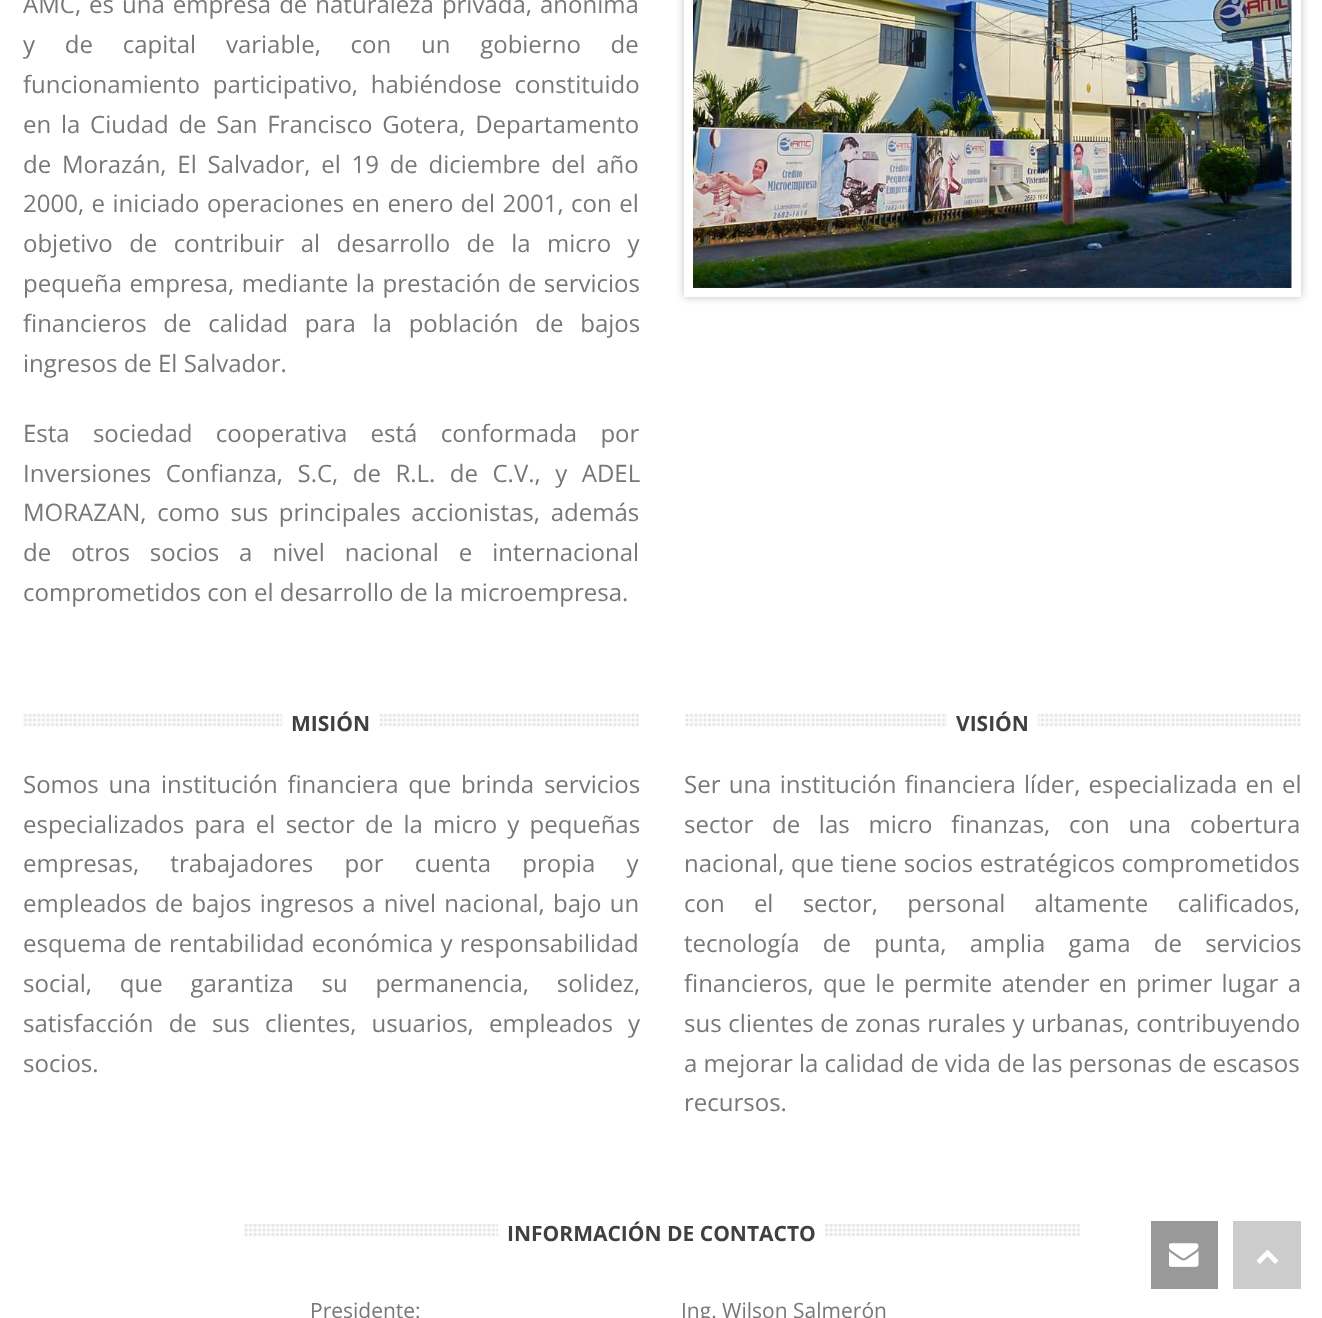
<svg xmlns="http://www.w3.org/2000/svg" width="1322" height="1318">
	<rect width="100%" height="100%" fill="#FFFFFF" />
	<g font-family="Open Sans" font-size="24" fill="#777777">
		<text x="23" y="13" word-spacing="1.75">AMC, es una empresa de naturaleza privada, anónima</text>
		<text x="23" y="53" word-spacing="23.5">y de capital variable, con un gobierno de</text>
		<text x="23" y="93" word-spacing="6.5">funcionamiento participativo, habiéndose constituido</text>
		<text x="23" y="133" word-spacing="3.5">en la Ciudad de San Francisco Gotera, Departamento</text>
		<text x="23" y="173" word-spacing="4.5">de Morazán, El Salvador, el 19 de diciembre del año</text>
		<text x="23" y="212" word-spacing="1.25">2000, e iniciado operaciones en enero del 2001, con el</text>
		<text x="23" y="252" word-spacing="10.25">objetivo de contribuir al desarrollo de la micro y</text>
		<text x="23" y="292" word-spacing="1.25">pequeña empresa, mediante la prestación de servicios</text>
		<text x="23" y="332" word-spacing="10.5">financieros de calidad para la población de bajos</text>
		<text x="23" y="372">ingresos de El Salvador.</text>
		<text x="23" y="442" word-spacing="17">Esta sociedad cooperativa está conformada por</text>
		<text x="23" y="482" word-spacing="8.25">Inversiones Confianza, S.C, de R.L. de C.V., y ADEL</text>
		<text x="23" y="521" word-spacing="4.5">MORAZAN, como sus principales accionistas, además</text>
		<text x="23" y="561" word-spacing="13.75">de otros socios a nivel nacional e internacional</text>
		<text x="23" y="601">comprometidos con el desarrollo de la microempresa.</text>
	</g>
	<rect x="684" y="-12" width="617" height="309" fill="#000000" fill-opacity="0.25" filter="blur(4px)" />
	<rect x="688.5" y="-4.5" width="608" height="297" fill="none" stroke="#FFFFFF" stroke-width="9" />
	<image x="693" y="0" width="599" height="288" href="assets/img1.png" />
	<image x="22" y="714" width="617" height="12" href="assets/img2.png" />
	<rect x="282" y="714" width="98" height="12" fill="#FFFFFF" />
	<text x="291" y="731" font-family="Open Sans" font-size="21" font-weight="700" fill="#404040">MISIÓN</text>
	<g font-family="Open Sans" font-size="24" fill="#777777">
		<text x="23" y="793" word-spacing="3.5">Somos una institución financiera que brinda servicios</text>
		<text x="23" y="833" word-spacing="4">especializados para el sector de la micro y pequeñas</text>
		<text x="23" y="872" word-spacing="25">empresas, trabajadores por cuenta propia y</text>
		<text x="23" y="912" word-spacing="2">empleados de bajos ingresos a nivel nacional, bajo un</text>
		<text x="23" y="952" word-spacing="1">esquema de rentabilidad económica y responsabilidad</text>
		<text x="23" y="992" word-spacing="21.5">social, que garantiza su permanencia, solidez,</text>
		<text x="23" y="1032" word-spacing="9">satisfacción de sus clientes, usuarios, empleados y</text>
		<text x="23" y="1072">socios.</text>
	</g>
	<image x="685" y="714" width="616" height="12" href="assets/img3.png" />
	<rect x="947" y="714" width="91" height="12" fill="#FFFFFF" />
	<text x="956" y="731" font-family="Open Sans" font-size="21" font-weight="700" fill="#404040">VISIÓN</text>
	<g font-family="Open Sans" font-size="24" fill="#777777">
		<text x="684" y="793" word-spacing="2">Ser una institución financiera líder, especializada en el</text>
		<text x="684" y="833" word-spacing="12.5">sector de las micro finanzas, con una cobertura</text>
		<text x="684" y="872" word-spacing="0.5">nacional, que tiene socios estratégicos comprometidos</text>
		<text x="684" y="912" word-spacing="23">con el sector, personal altamente calificados,</text>
		<text x="684" y="952" word-spacing="17">tecnología de punta, amplia gama de servicios</text>
		<text x="684" y="992" word-spacing="3">financieros, que le permite atender en primer lugar a</text>
		<text x="684" y="1032" word-spacing="0.5">sus clientes de zonas rurales y urbanas, contribuyendo</text>
		<text x="684" y="1072">a mejorar la calidad de vida de las personas de escasos</text>
		<text x="684" y="1111">recursos.</text>
	</g>
	<image x="244" y="1224" width="836" height="12" href="assets/img4.png" />
	<rect x="498" y="1224" width="327" height="12" fill="#FFFFFF" />
	<text x="507" y="1241" font-family="Open Sans" font-size="21" font-weight="700" fill="#404040">INFORMACIÓN DE CONTACTO</text>
	<g font-family="Open Sans" font-size="21" fill="#777777">
		<text x="310" y="1318">Presidente:</text>
		<text x="681" y="1318">Ing. Wilson Salmerón</text>
	</g>
	<rect x="1151" y="1221" width="67" height="68" fill="#999999" />
	<image x="1169" y="1243" width="30" height="24" href="assets/img5.png" />
	<rect x="1233" y="1221" width="68" height="68" fill="#CCCCCC" />
	<image x="1256" y="1250" width="23" height="14" href="assets/img6.png" />
</svg>
